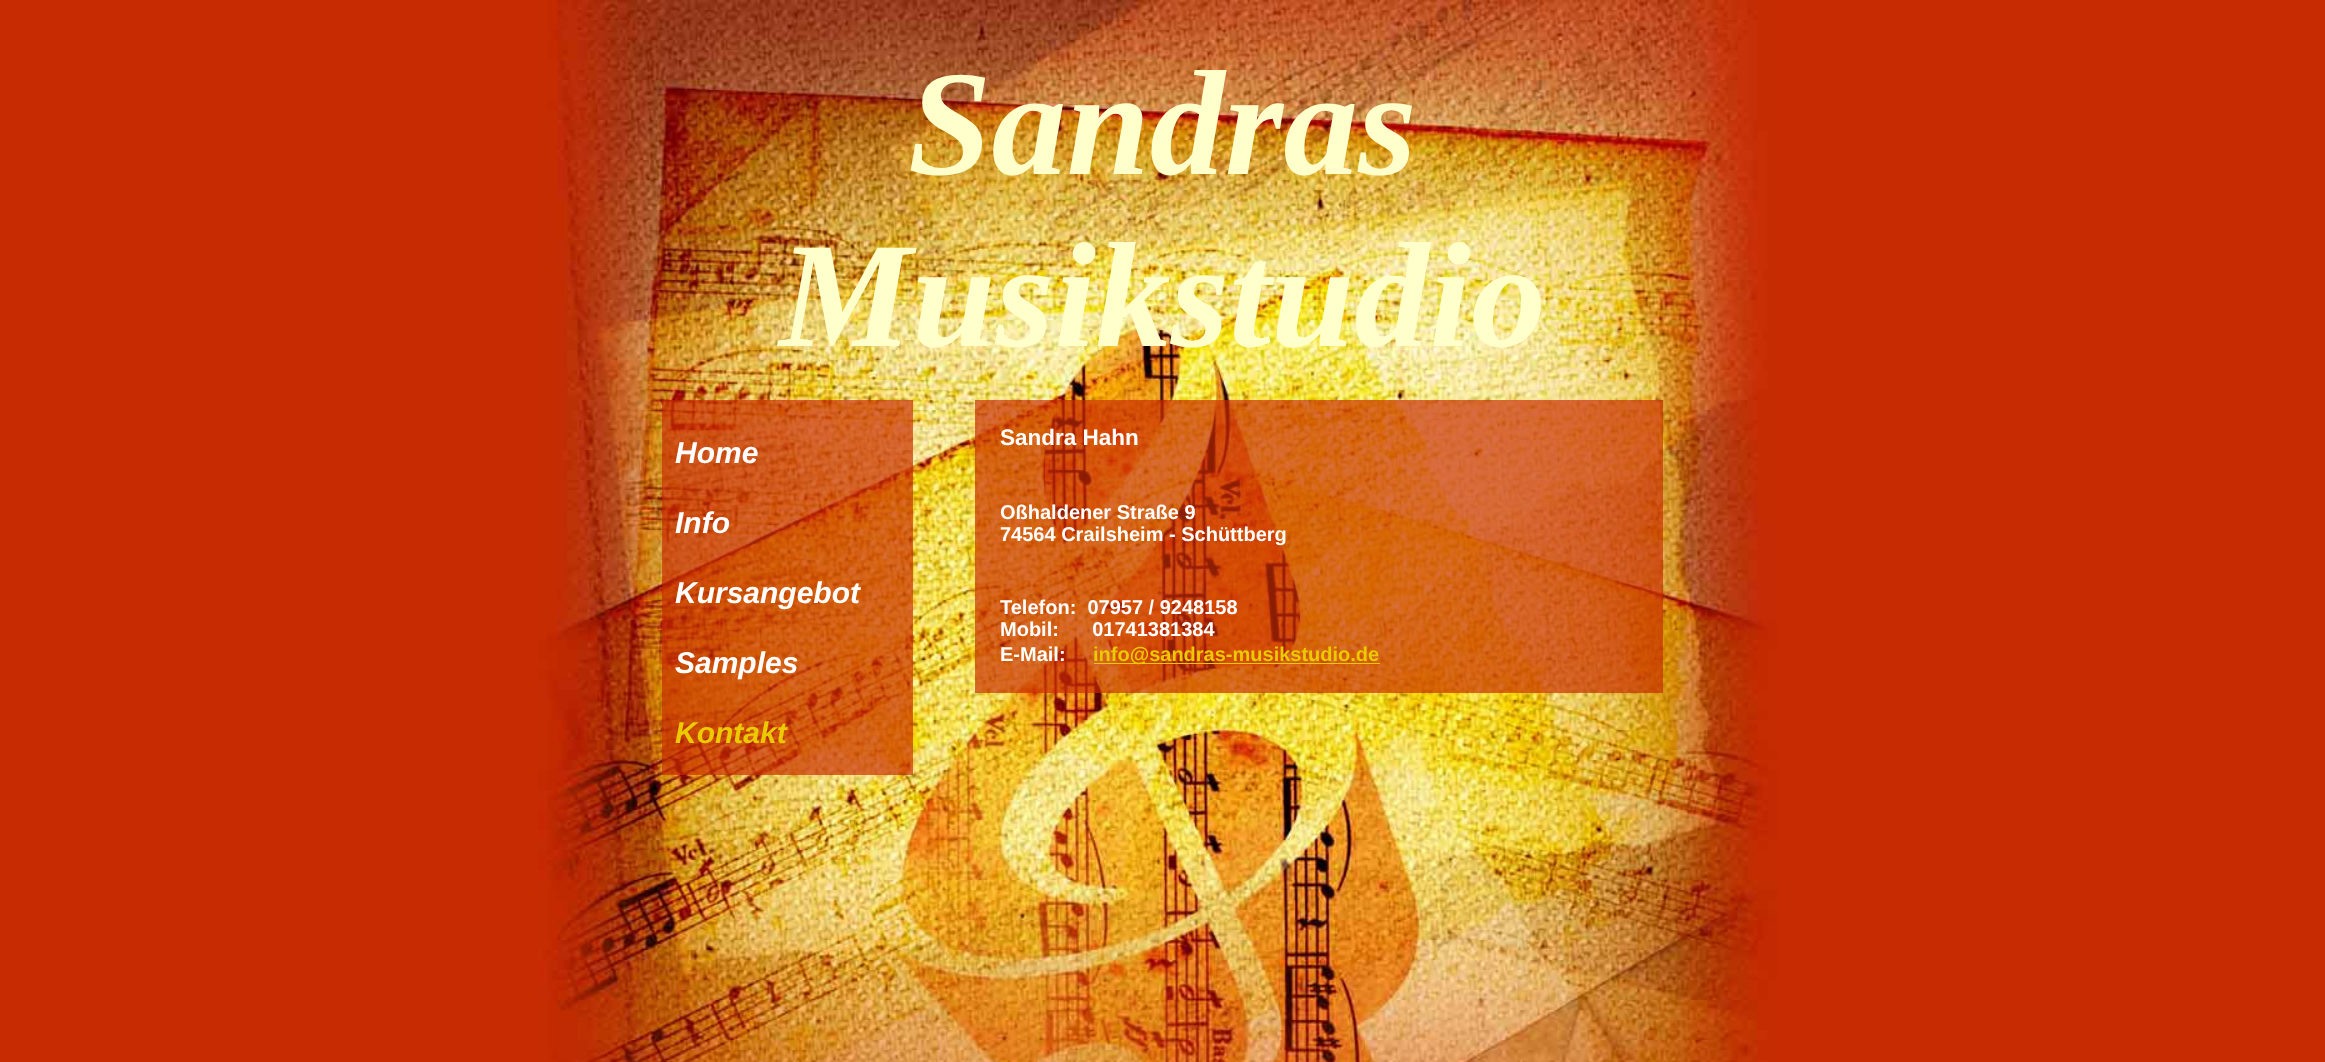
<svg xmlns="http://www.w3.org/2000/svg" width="2325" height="1062">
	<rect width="100%" height="100%" fill="#C72B01" />
	<image x="538" y="0" width="1239" height="1062" href="assets/img1.png" />
	<g font-family="Liberation Serif" font-size="150" font-weight="700" font-style="italic" fill="#FFFFCC">
		<text x="908" y="174">Sandras</text>
		<text x="779" y="346">Musikstudio</text>
	</g>
	<rect x="662" y="400" width="251" height="375" fill="#C72B01" fill-opacity="0.68" />
	<g font-family="Liberation Sans" font-size="30" font-weight="700" font-style="italic" fill="#FFFFFF">
		<text x="675" y="463">Home</text>
		<text x="675" y="533">Info</text>
		<text x="675" y="603">Kursangebot</text>
		<text x="675" y="673">Samples</text>
	</g>
	<text x="675" y="743" font-family="Liberation Sans" font-size="30" font-weight="700" font-style="italic" fill="#EBCA00">Kontakt</text>
	<rect x="975" y="400" width="688" height="293" fill="#C72B01" fill-opacity="0.68" />
	<text x="1000" y="445" font-family="Liberation Sans" font-size="22.5" font-weight="700" fill="#FFFFFF">Sandra Hahn</text>
	<g font-family="Liberation Sans" font-size="20" font-weight="700" fill="#FFFFFF">
		<text x="1000" y="519">Oßhaldener Straße 9</text>
		<text x="1000" y="541">74564 Crailsheim - Schüttberg</text>
		<text x="1000" y="614" xml:space="preserve">Telefon:  07957 / 9248158</text>
		<text x="1000" y="636" xml:space="preserve">Mobil:      01741381384</text>
		<text x="1000" y="661">E-Mail:</text>
	</g>
	<rect x="1094" y="663" width="286" height="1" fill="#EBCA00" />
	<text x="1093" y="661" font-family="Liberation Sans" font-size="20" font-weight="700" fill="#EBCA00">info@sandras-musikstudio.de</text>
</svg>
